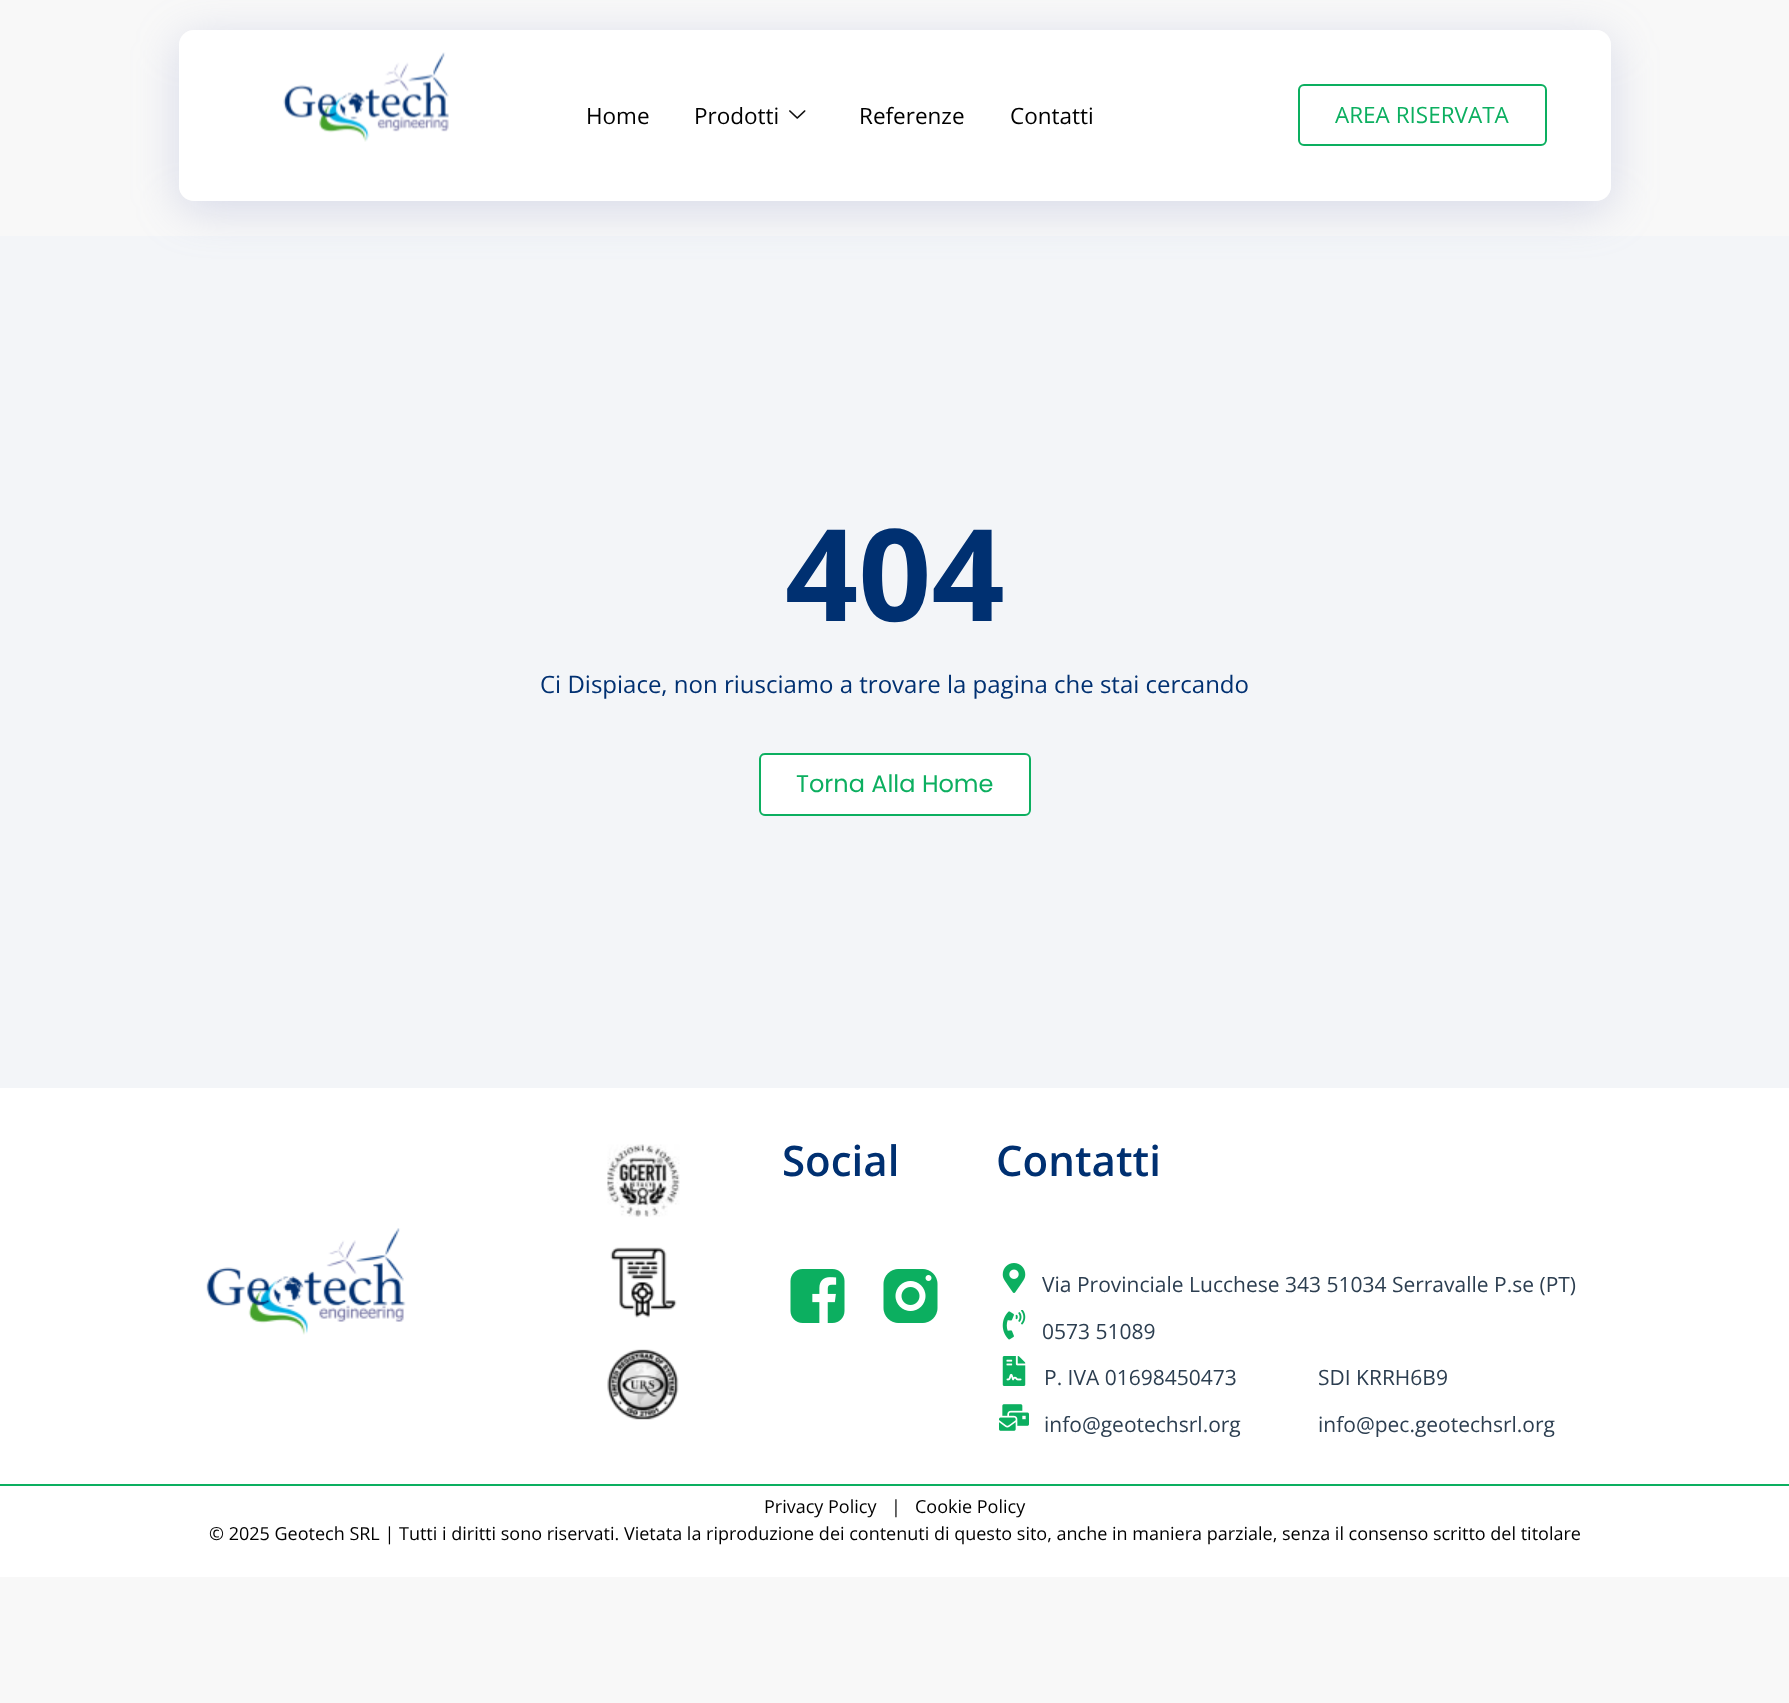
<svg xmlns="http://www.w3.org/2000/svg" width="1789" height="1703">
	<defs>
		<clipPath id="clip1"><path d="M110 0H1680V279H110ZM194 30H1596C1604.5 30 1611 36.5 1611 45V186C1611 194.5 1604.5 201 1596 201H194C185.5 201 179 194.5 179 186V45C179 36.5 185.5 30 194 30Z" clip-rule="evenodd" /></clipPath>
	</defs>
	<rect width="100%" height="100%" fill="#F8F8F8" />
	<rect x="0" y="236" width="1789" height="852" fill="#F3F5F8" />
	<g clip-path="url(#clip1)">
		<rect x="179" y="39" width="1432" height="171" rx="15" fill="#8792C2" fill-opacity="0.3" filter="blur(22.5px)" />
	</g>
	<rect x="179" y="30" width="1432" height="171" rx="15" fill="#FFFFFF" fill-opacity="0.95" />
	<image x="283" y="52" width="166" height="90" href="assets/img1.png" />
	<g font-family="Open Sans" font-size="22.5" fill="#000000">
		<text x="586" y="124">Home</text>
		<text x="694" y="124">Prodotti</text>
	</g>
	<image x="789" y="110" width="17" height="9" href="assets/img2.png" />
	<g font-family="Open Sans" font-size="22.5" fill="#000000">
		<text x="859" y="124">Referenze</text>
		<text x="1010" y="124">Contatti</text>
	</g>
	<rect x="1299" y="85" width="247" height="60" rx="5" fill="none" stroke="#0CAF60" stroke-width="2" />
	<text x="1335" y="123" font-family="Open Sans" font-size="22.5" fill="#0CAF60">AREA RISERVATA</text>
	<text x="785" y="621" font-family="Open Sans" font-size="128" font-weight="700" fill="#003071">404</text>
	<text x="540" y="693" font-family="Open Sans" font-size="24" fill="#003071">Ci Dispiace, non riusciamo a trovare la pagina che stai cercando</text>
	<rect x="760" y="754" width="270" height="61" rx="5" fill="#FFFFFF" stroke="#0CAF60" stroke-width="2" />
	<text x="796" y="792" font-family="Poppins" font-size="24" fill="#0CAF60">Torna Alla Home</text>
	<rect x="0" y="1088" width="1789" height="489" fill="#FFFFFF" />
	<image x="206" y="1228" width="200" height="107" href="assets/img3.png" />
	<image x="607" y="1144" width="73" height="73" href="assets/img4.png" />
	<image x="610" y="1247" width="67" height="71" href="assets/img5.png" />
	<image x="607" y="1349" width="72" height="71" href="assets/img6.png" />
	<text x="782" y="1176" font-family="Open Sans" font-size="42" font-weight="600" fill="#003071">Social</text>
	<image x="790" y="1269" width="55" height="54" href="assets/img7.png" />
	<image x="883" y="1269" width="55" height="54" href="assets/img8.png" />
	<text x="996" y="1176" font-family="Open Sans" font-size="42" font-weight="600" fill="#003071">Contatti</text>
	<image x="1002" y="1263" width="24" height="30" href="assets/img9.png" />
	<text x="1042" y="1292" font-family="Open Sans" font-size="21" fill="#2C3E50">Via Provinciale Lucchese 343 51034 Serravalle P.se (PT)</text>
	<image x="1002" y="1310" width="24" height="30" href="assets/img10.png" />
	<text x="1042" y="1339" font-family="Open Sans" font-size="21" fill="#2C3E50">0573 51089</text>
	<image x="1002" y="1356" width="24" height="30" href="assets/img11.png" />
	<g font-family="Open Sans" font-size="21" fill="#2C3E50">
		<text x="1044" y="1385">P. IVA 01698450473</text>
		<text x="1318" y="1385">SDI KRRH6B9</text>
	</g>
	<image x="999" y="1404" width="30" height="27" href="assets/img12.png" />
	<g font-family="Open Sans" font-size="21" fill="#2C3E50">
		<text x="1044" y="1432">info@geotechsrl.org</text>
		<text x="1318" y="1432">info@pec.geotechsrl.org</text>
	</g>
	<rect x="0" y="1484" width="1789" height="2" fill="#0CAF60" />
	<g font-family="Open Sans" font-size="18" fill="#000000">
		<text x="764" y="1513">Privacy Policy</text>
		<text x="891" y="1513">|</text>
		<text x="915" y="1513">Cookie Policy</text>
		<text x="209" y="1540">© 2025 Geotech SRL | Tutti i diritti sono riservati. Vietata la riproduzione dei contenuti di questo sito, anche in maniera parziale, senza il consenso scritto del titolare</text>
	</g>
</svg>
